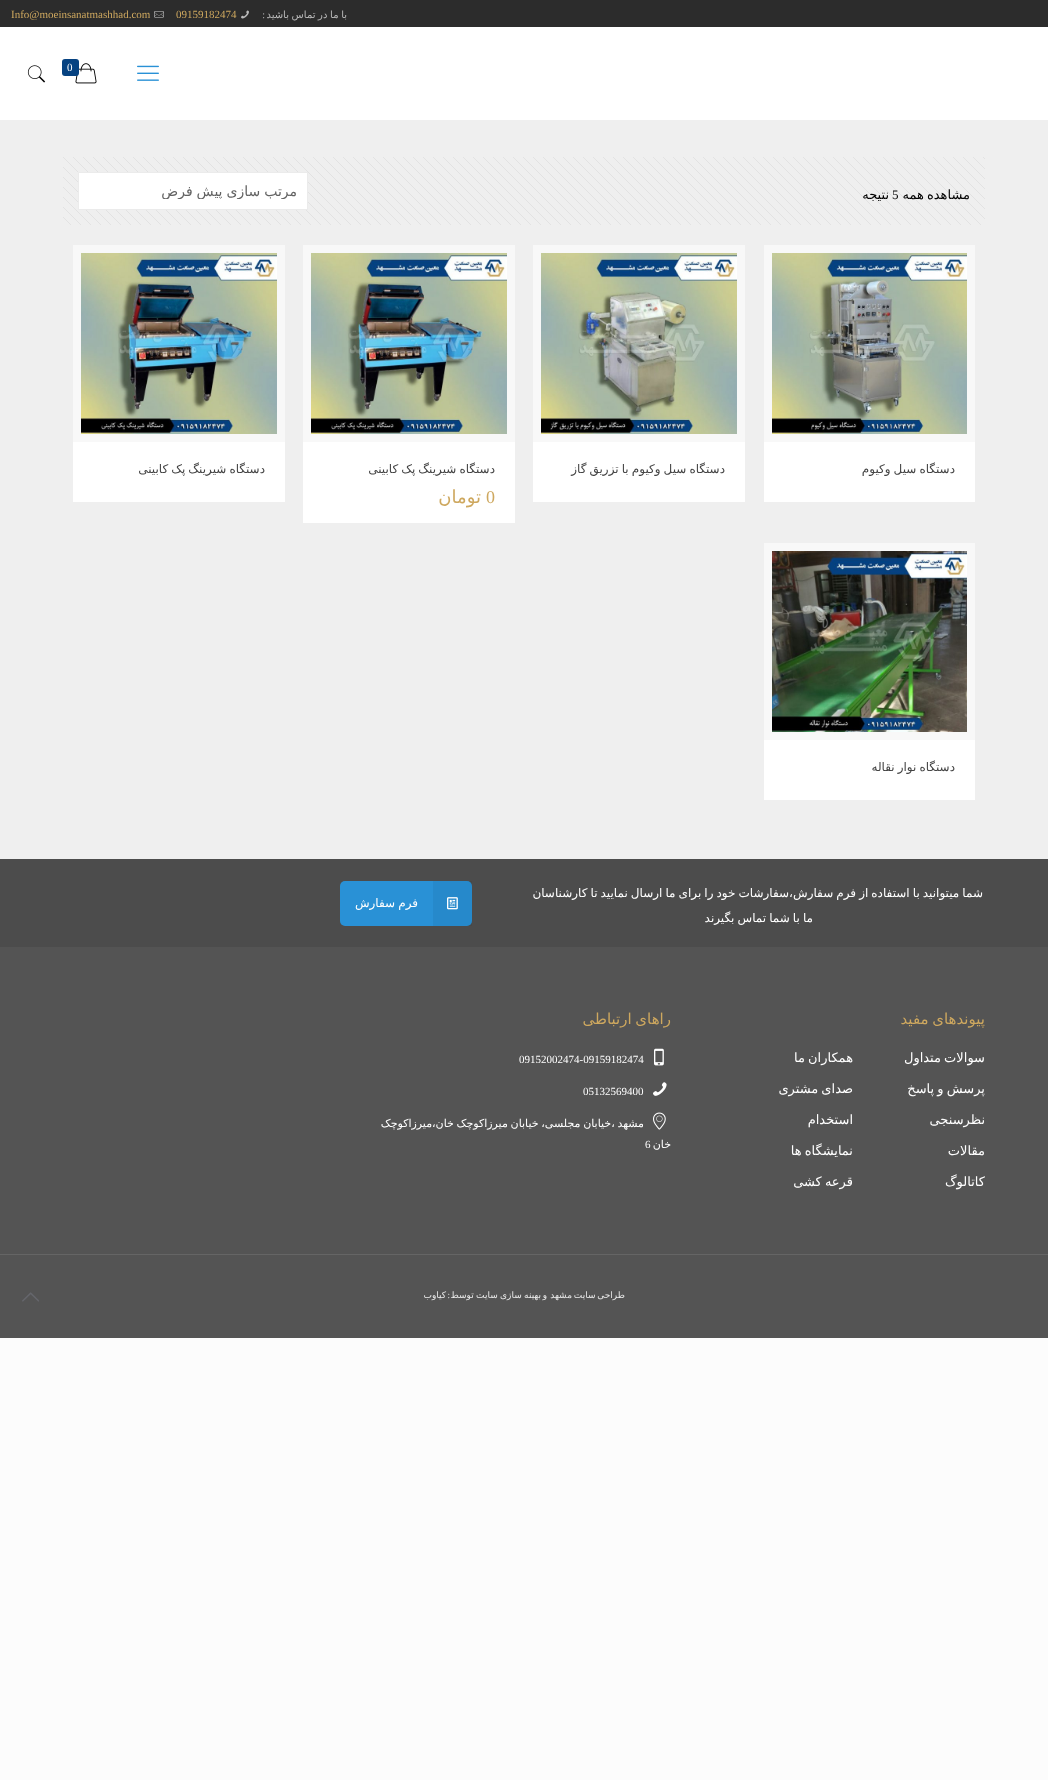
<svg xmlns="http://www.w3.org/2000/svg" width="1048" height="1780">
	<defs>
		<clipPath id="clip1"><rect x="89" y="183" width="208" height="16" /></clipPath>
	</defs>
	<rect width="100%" height="100%" fill="#FCFCFC" />
	<rect x="0" y="0" width="1048" height="27" fill="#2C2C2C" />
	<text x="347" y="18" word-spacing="-0.5" font-family="DejaVu Sans" font-size="10" direction="rtl" fill="#BBBBBB">با ما در تماس باشید</text>
	<text x="265" y="18" font-family="Liberation Serif" font-size="10" direction="rtl" fill="#BBBBBB">:</text>
	<image x="241" y="10" width="8" height="9" href="assets/img1.png" />
	<text x="176" y="18" font-family="Liberation Serif" font-size="11" fill="#CEA85F">09159182474</text>
	<image x="154" y="11" width="10" height="7" href="assets/img2.png" />
	<text x="11" y="18" font-family="Liberation Serif" font-size="11" fill="#CEA85F">Info@moeinsanatmashhad.com</text>
	<rect x="0" y="27" width="1048" height="93" fill="#FFFFFF" />
	<image x="137" y="65" width="22" height="16" href="assets/img3.png" />
	<image x="75" y="63" width="22" height="21" href="assets/img4.png" />
	<rect x="62" y="59" width="17" height="17" rx="3" fill="#064281" />
	<text x="67" y="71" font-family="Liberation Serif" font-size="11" fill="#FFFFFF">0</text>
	<image x="27" y="65" width="19" height="18" href="assets/img5.png" />
	<rect x="0" y="120" width="1048" height="739" fill="#EFEFEF" />
	<image x="63" y="157" width="922" height="68" href="assets/img6.png" />
	<text x="970" y="199" word-spacing="-1" font-family="DejaVu Sans" font-size="13" direction="rtl" fill="#000000">مشاهده همه</text>
	<text x="892" y="199" font-family="Liberation Serif" font-size="13" fill="#000000">5</text>
	<text x="889" y="199" font-family="DejaVu Sans" font-size="13" direction="rtl" fill="#000000">نتیجه</text>
	<rect x="78.5" y="172.5" width="229" height="37" fill="#FFFFFF" stroke="#EBEBEB" />
	<g clip-path="url(#clip1)">
		<text x="297" y="196" word-spacing="-0.5" font-family="DejaVu Sans" font-size="14" direction="rtl" fill="#626262">مرتب سازی پیش فرض</text>
	</g>
	<rect x="768" y="249" width="203" height="189" fill="none" stroke="#F8F8F8" stroke-width="8" />
	<image x="772" y="253" width="195" height="181" href="assets/img7.png" />
	<rect x="764" y="442" width="211" height="60" fill="#FFFFFF" />
	<text x="955" y="473" word-spacing="-0.75" font-family="DejaVu Sans" font-size="12" direction="rtl" fill="#444444">دستگاه سیل وکیوم</text>
	<rect x="537" y="249" width="204" height="189" fill="none" stroke="#F8F8F8" stroke-width="8" />
	<image x="541" y="253" width="196" height="181" href="assets/img8.png" />
	<rect x="533" y="442" width="212" height="60" fill="#FFFFFF" />
	<text x="725" y="473" word-spacing="-0.75" font-family="DejaVu Sans" font-size="12" direction="rtl" fill="#444444">دستگاه سیل وکیوم با تزریق گاز</text>
	<rect x="307" y="249" width="204" height="189" fill="none" stroke="#F8F8F8" stroke-width="8" />
	<image x="311" y="253" width="196" height="181" href="assets/img9.png" />
	<rect x="303" y="442" width="212" height="81" fill="#FFFFFF" />
	<text x="495" y="473" word-spacing="-0.75" font-family="DejaVu Sans" font-size="12" direction="rtl" fill="#444444">دستگاه شیرینگ پک کابینی</text>
	<text x="486" y="503" font-family="Liberation Serif" font-size="18" fill="#CEA85F">0</text>
	<text x="481" y="503" font-family="DejaVu Sans" font-size="18" direction="rtl" fill="#CEA85F">تومان</text>
	<rect x="77" y="249" width="204" height="189" fill="none" stroke="#F8F8F8" stroke-width="8" />
	<image x="81" y="253" width="196" height="181" href="assets/img9.png" />
	<rect x="73" y="442" width="212" height="60" fill="#FFFFFF" />
	<text x="265" y="473" word-spacing="-0.75" font-family="DejaVu Sans" font-size="12" direction="rtl" fill="#444444">دستگاه شیرینگ پک کابینی</text>
	<rect x="768" y="547" width="203" height="189" fill="none" stroke="#F8F8F8" stroke-width="8" />
	<image x="772" y="551" width="195" height="181" href="assets/img10.png" />
	<rect x="764" y="740" width="211" height="60" fill="#FFFFFF" />
	<text x="955" y="771" word-spacing="-0.75" font-family="DejaVu Sans" font-size="12" direction="rtl" fill="#444444">دستگاه نوار نقاله</text>
	<rect x="0" y="947" width="1048" height="391" fill="#545454" />
	<rect x="0" y="859" width="1048" height="88" fill="#4C4C4C" />
	<g font-family="DejaVu Sans" font-size="12" direction="rtl" fill="#FFFFFF">
		<text x="983" y="897" word-spacing="-0.75">شما میتوانید با استفاده از فرم سفارش،سفارشات خود را برای ما ارسال نمایید تا کارشناسان</text>
		<text x="813" y="922" word-spacing="-0.75">ما با شما تماس بگیرند</text>
	</g>
	<rect x="340" y="881" width="132" height="45" rx="5" fill="#2991D6" />
	<rect x="433" y="881" width="39" height="45" fill="#000000" fill-opacity="0.05" />
	<image x="447" y="897" width="11" height="13" href="assets/img11.png" />
	<text x="418" y="907" word-spacing="-0.75" font-family="DejaVu Sans" font-size="12" direction="rtl" fill="#FFFFFF">فرم سفارش</text>
	<text x="985" y="1024" word-spacing="-1" font-family="DejaVu Sans" font-size="15" direction="rtl" fill="#CEA85F">پیوندهای مفید</text>
	<g font-family="DejaVu Sans" font-size="13" direction="rtl" fill="#FFFFFF">
		<text x="985" y="1062" word-spacing="-1">سوالات متداول</text>
		<text x="985" y="1093" word-spacing="-1">پرسش و پاسخ</text>
		<text x="985" y="1124">نظرسنجی</text>
		<text x="985" y="1155">مقالات</text>
		<text x="985" y="1186">کاتالوگ</text>
		<text x="853" y="1062" word-spacing="-1">همکاران ما</text>
		<text x="853" y="1093" word-spacing="-1">صدای مشتری</text>
		<text x="853" y="1124">استخدام</text>
		<text x="853" y="1155" word-spacing="-1">نمایشگاه ها</text>
		<text x="853" y="1186" word-spacing="-1">قرعه کشی</text>
	</g>
	<text x="671" y="1024" word-spacing="-1" font-family="DejaVu Sans" font-size="15" direction="rtl" fill="#CEA85F">راهای ارتباطی</text>
	<image x="654" y="1048" width="10" height="18" href="assets/img12.png" />
	<text x="519" y="1063" font-family="Liberation Serif" font-size="11" fill="#FFFFFF">09152002474-09159182474</text>
	<image x="653" y="1082" width="14" height="14" href="assets/img13.png" />
	<text x="583" y="1095" font-family="Liberation Serif" font-size="11" fill="#FFFFFF">05132569400</text>
	<image x="653" y="1112" width="13" height="18" href="assets/img14.png" />
	<g font-family="DejaVu Sans" font-size="11" direction="rtl" fill="#FFFFFF">
		<text x="644" y="1127" word-spacing="-0.75">مشهد ،خیابان مجلسی، خیابان میرزاکوچک خان،میرزاکوچک</text>
		<text x="671" y="1148">خان</text>
	</g>
	<text x="645" y="1148" font-family="Liberation Serif" font-size="11" fill="#FFFFFF">6</text>
	<rect x="0" y="1254" width="1048" height="1" fill="#656565" />
	<g font-family="DejaVu Sans" font-size="9" direction="rtl" fill="#EBEBEB">
		<text x="625" y="1298" word-spacing="-1">طراحی سایت مشهد</text>
		<text x="547" y="1298">و</text>
		<text x="541" y="1298" word-spacing="-0.5">بهینه سازی سایت توسط</text>
	</g>
	<text x="450" y="1298" font-family="Liberation Serif" font-size="9" direction="rtl" fill="#EBEBEB">:</text>
	<text x="446" y="1298" font-family="DejaVu Sans" font-size="9" direction="rtl" fill="#EBEBEB">کیاوب</text>
	<image x="22" y="1292" width="17" height="10" href="assets/img15.png" />
</svg>
